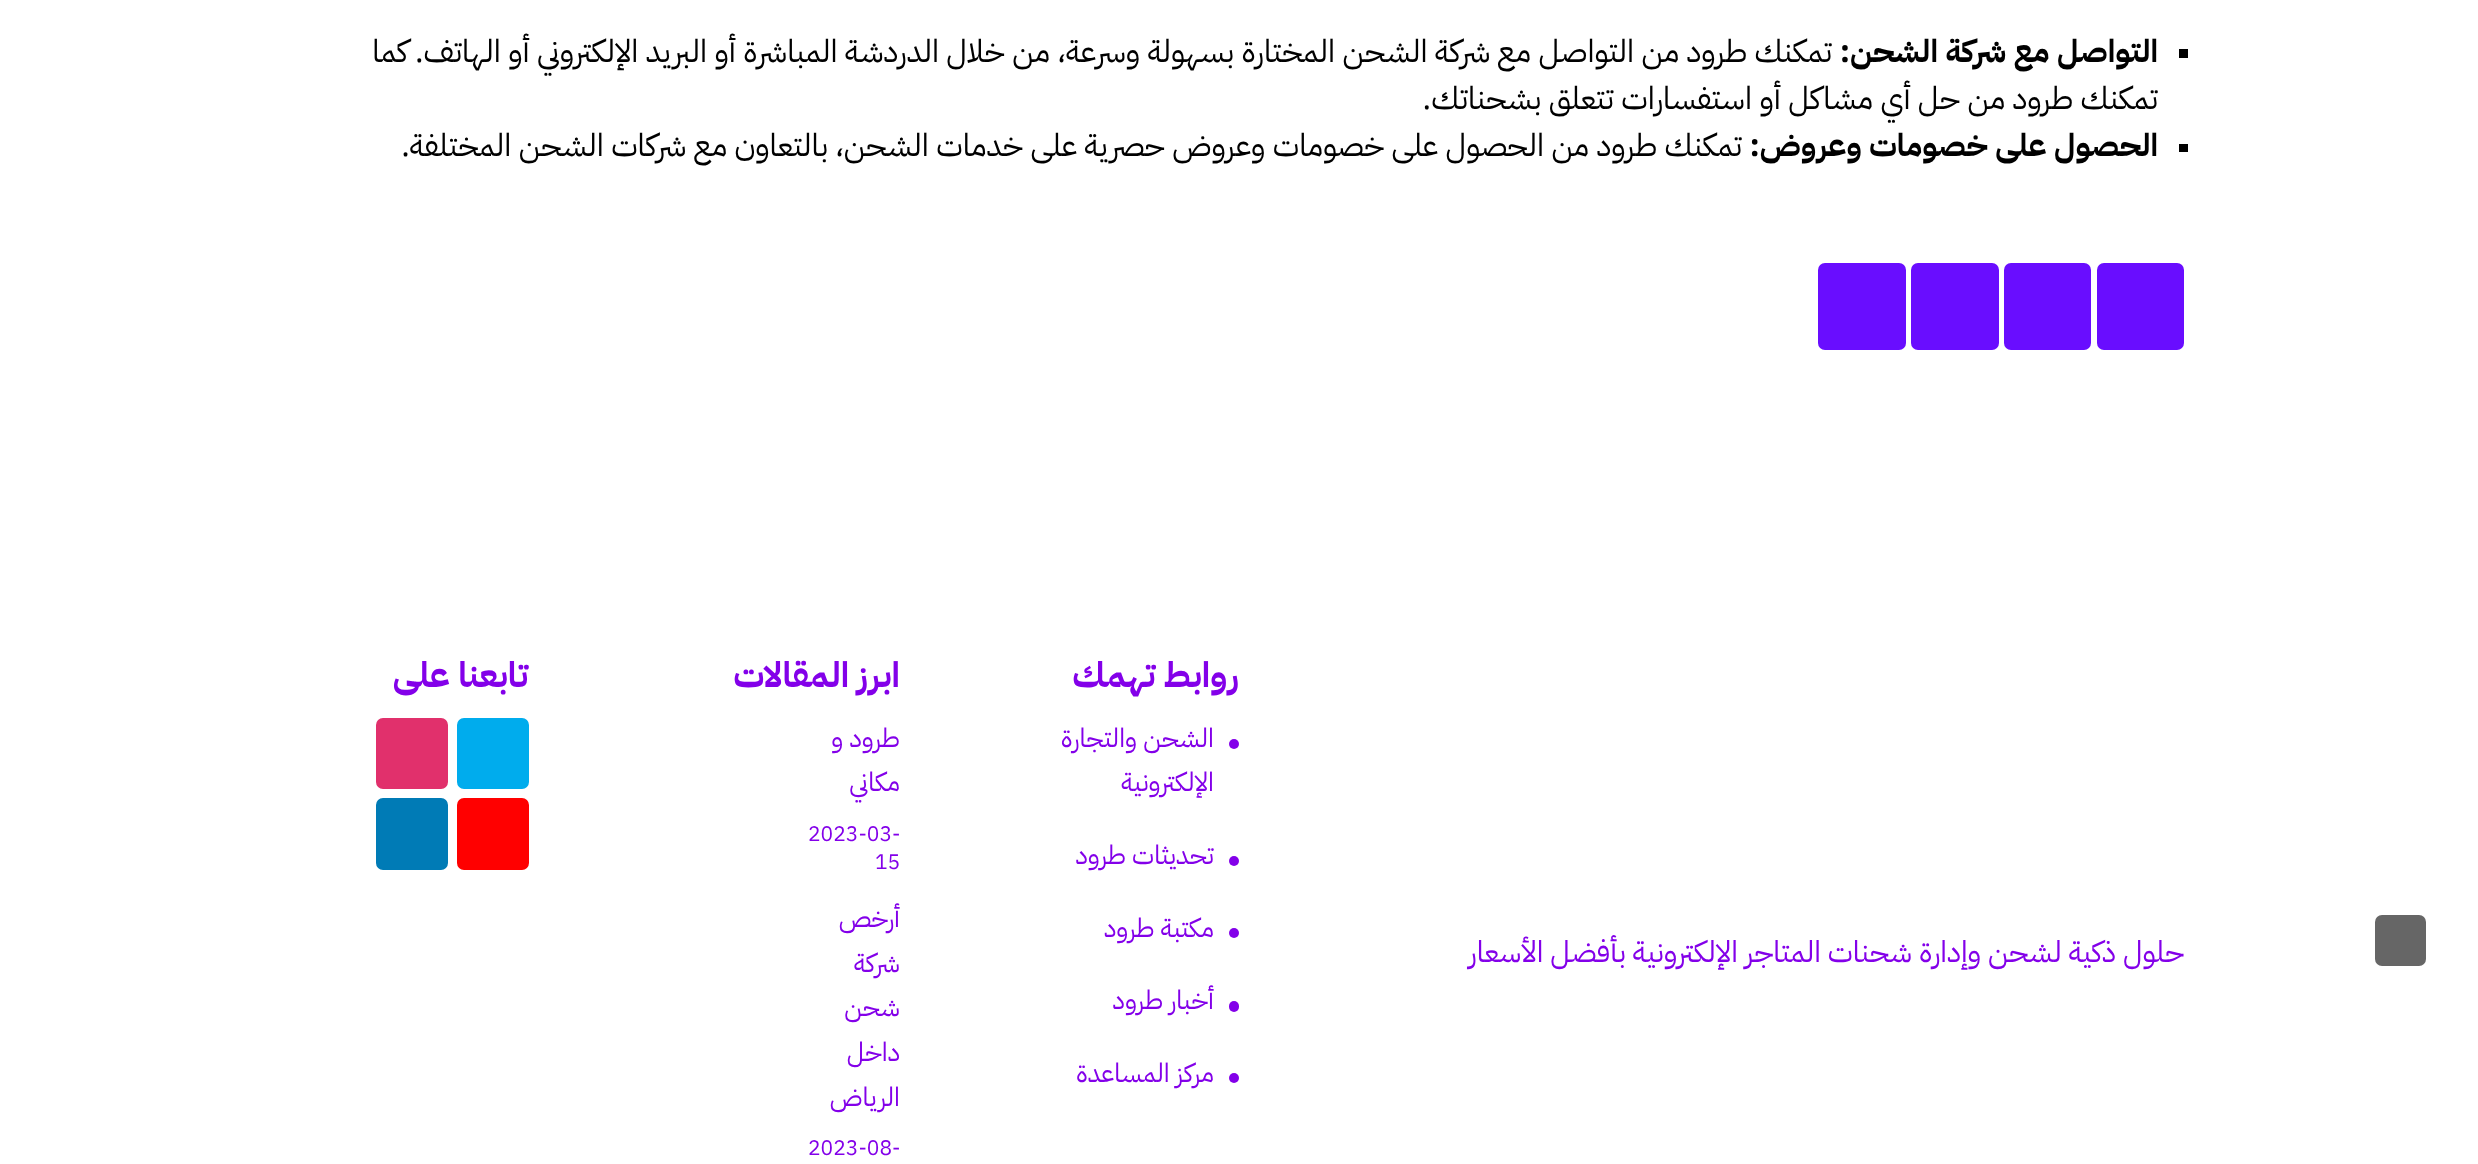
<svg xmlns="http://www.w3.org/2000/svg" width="2478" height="1164">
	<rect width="100%" height="100%" fill="#FFFFFF" />
	<rect x="2375" y="915" width="51" height="51" rx="7" fill="#666666" />
	<rect x="2179" y="49" width="9" height="9" fill="#000000" />
	<text x="2158" y="62" font-family="IBM Plex Sans Arabic" font-size="31.5" font-weight="700" direction="rtl" fill="#000000">التواصل مع شركة الشحن:</text>
	<g font-family="IBM Plex Sans Arabic" font-size="31.5" direction="rtl" fill="#000000">
		<text x="1832" y="62">تمكنك طرود من التواصل مع شركة الشحن المختارة بسهولة وسرعة، من خلال الدردشة المباشرة أو البريد الإلكتروني أو الهاتف. كما</text>
		<text x="2158" y="109">تمكنك طرود من حل أي مشاكل أو استفسارات تتعلق بشحناتك.</text>
	</g>
	<rect x="2179" y="144" width="9" height="8" fill="#000000" />
	<text x="2158" y="156" font-family="IBM Plex Sans Arabic" font-size="31.5" font-weight="700" direction="rtl" fill="#000000">الحصول على خصومات وعروض:</text>
	<text x="1742" y="156" font-family="IBM Plex Sans Arabic" font-size="31.5" direction="rtl" fill="#000000">تمكنك طرود من الحصول على خصومات وعروض حصرية على خدمات الشحن، بالتعاون مع شركات الشحن المختلفة.</text>
	<rect x="2097" y="263" width="87" height="87" rx="7" fill="#690DFF" />
	<rect x="2004" y="263" width="87" height="87" rx="7" fill="#690DFF" />
	<rect x="1911" y="263" width="88" height="87" rx="7" fill="#690DFF" />
	<rect x="1818" y="263" width="88" height="87" rx="7" fill="#690DFF" />
	<text x="2184" y="962" font-family="IBM Plex Sans Arabic" font-size="29.75" direction="rtl" fill="#8300E9">حلول ذكية لشحن وإدارة شحنات المتاجر الإلكترونية بأفضل الأسعار</text>
	<text x="1239" y="687" font-family="IBM Plex Sans Arabic" font-size="35" font-weight="700" direction="rtl" fill="#8300E9">روابط تهمك</text>
	<circle cx="1234" cy="744" r="5" fill="#8300E9" />
	<g font-family="IBM Plex Sans Arabic" font-size="26.25" direction="rtl" fill="#8300E9">
		<text x="1214" y="747">الشحن والتجارة</text>
		<text x="1214" y="791">الإلكترونية</text>
	</g>
	<circle cx="1234" cy="861" r="5" fill="#8300E9" />
	<text x="1214" y="864" font-family="IBM Plex Sans Arabic" font-size="26.25" direction="rtl" fill="#8300E9">تحديثات طرود</text>
	<circle cx="1234" cy="933" r="5" fill="#8300E9" />
	<text x="1214" y="937" font-family="IBM Plex Sans Arabic" font-size="26.25" direction="rtl" fill="#8300E9">مكتبة طرود</text>
	<rect x="1229" y="1001" width="10" height="11" rx="5" fill="#8300E9" />
	<text x="1214" y="1009" font-family="IBM Plex Sans Arabic" font-size="26.25" direction="rtl" fill="#8300E9">أخبار طرود</text>
	<circle cx="1234" cy="1078" r="5" fill="#8300E9" />
	<text x="1214" y="1082" font-family="IBM Plex Sans Arabic" font-size="26.25" direction="rtl" fill="#8300E9">مركز المساعدة</text>
	<text x="900" y="687" font-family="IBM Plex Sans Arabic" font-size="35" font-weight="700" direction="rtl" fill="#8300E9">ابرز المقالات</text>
	<g font-family="IBM Plex Sans Arabic" font-size="26.25" direction="rtl" fill="#8300E9">
		<text x="900" y="747">طرود و</text>
		<text x="900" y="791">مكاني</text>
	</g>
	<g font-family="IBM Plex Sans Arabic" font-size="21" fill="#8300E9">
		<text x="808" y="841">2023-03-</text>
		<text x="875" y="869">15</text>
	</g>
	<g font-family="IBM Plex Sans Arabic" font-size="26.25" direction="rtl" fill="#8300E9">
		<text x="900" y="927">أرخص</text>
		<text x="900" y="972">شركة</text>
		<text x="900" y="1016">شحن</text>
		<text x="900" y="1061">داخل</text>
		<text x="900" y="1106">الرياض</text>
	</g>
	<text x="808" y="1155" font-family="IBM Plex Sans Arabic" font-size="21" fill="#8300E9">2023-08-</text>
	<text x="528" y="687" font-family="IBM Plex Sans Arabic" font-size="35" font-weight="700" direction="rtl" fill="#8300E9">تابعنا على</text>
	<rect x="458" y="719" width="70" height="69" rx="6" fill="#00ACED" stroke="#00ACED" stroke-width="2" />
	<rect x="377" y="719" width="70" height="69" rx="6" fill="#E1306C" stroke="#E1306C" stroke-width="2" />
	<rect x="458" y="799" width="70" height="70" rx="6" fill="#FF0000" stroke="#FF0000" stroke-width="2" />
	<rect x="377" y="799" width="70" height="70" rx="6" fill="#007BB6" stroke="#007BB6" stroke-width="2" />
</svg>
